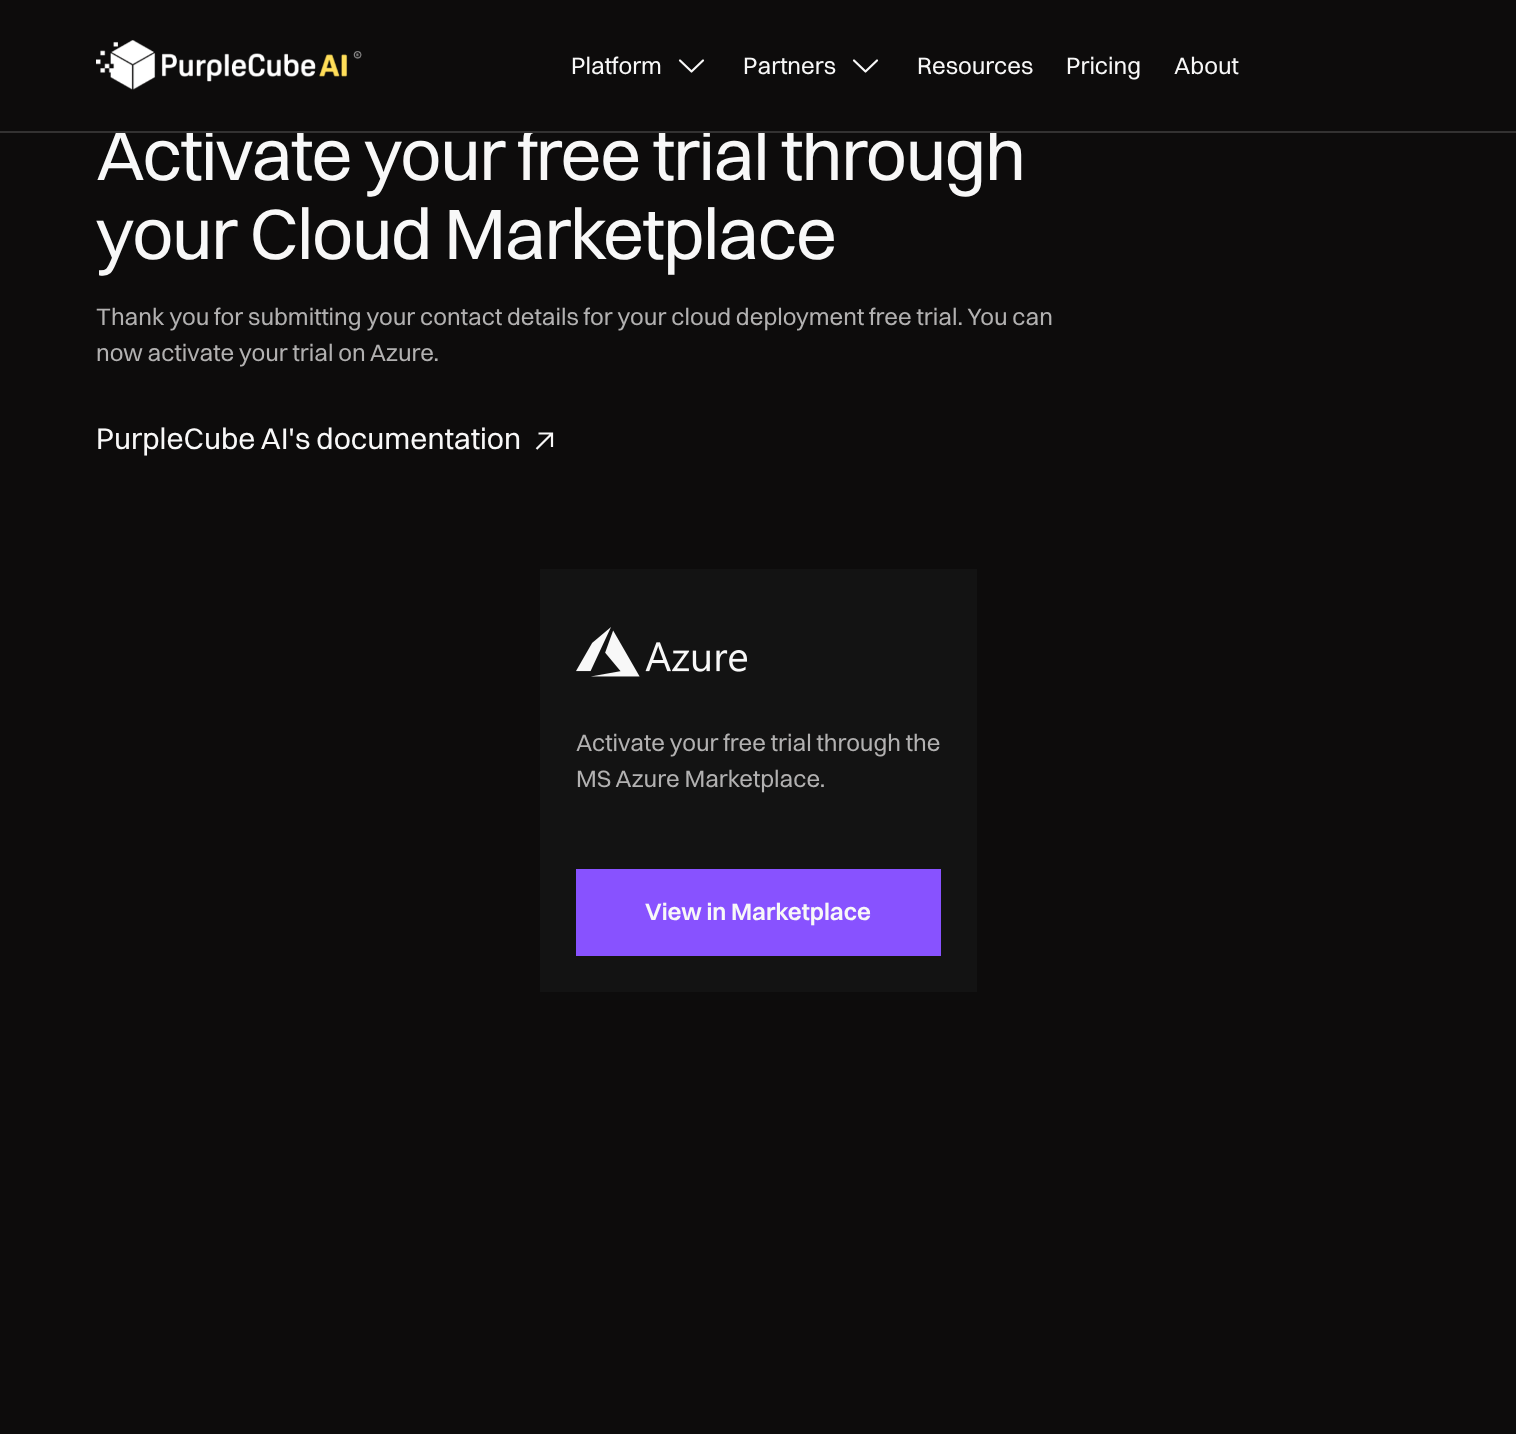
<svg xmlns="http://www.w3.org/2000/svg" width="1516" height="1434">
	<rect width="100%" height="100%" fill="#0D0C0C" />
	<text x="96" y="180" font-family="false" font-size="72" letter-spacing="-1.45" fill="#F8F8F8">Activate your free trial through</text>
	<rect x="206" y="127" width="791" height="4" fill="#0D0C0C" />
	<rect x="0" y="131" width="1516" height="2" fill="#333232" />
	<image x="96" y="40" width="266" height="50" href="assets/img1.png" />
	<text x="571" y="74" font-family="false" font-size="24" fill="#F8F8F8">Platform</text>
	<path d="M703 60.5L691.5 71.5L680 60.5" fill="none" stroke="#F8F8F8" stroke-width="2.2" stroke-linecap="round" stroke-linejoin="round" />
	<text x="743" y="74" font-family="false" font-size="24" fill="#F8F8F8">Partners</text>
	<path d="M877 60.5L865.5 71.5L854 60.5" fill="none" stroke="#F8F8F8" stroke-width="2.2" stroke-linecap="round" stroke-linejoin="round" />
	<g font-family="false" font-size="24" fill="#F8F8F8">
		<text x="917" y="74">Resources</text>
		<text x="1066" y="74">Pricing</text>
		<text x="1174" y="74">About</text>
	</g>
	<text x="96" y="259" font-family="false" font-size="72" letter-spacing="-1.45" fill="#F8F8F8">your Cloud Marketplace</text>
	<g font-family="false" font-size="24" fill="#B2B1B1">
		<text x="96" y="325">Thank you for submitting your contact details for your cloud deployment free trial. You can</text>
		<text x="96" y="361">now activate your trial on Azure.</text>
	</g>
	<text x="96" y="449" font-family="false" font-size="30" fill="#F8F8F8">PurpleCube AI's documentation</text>
	<path d="M536.5 449L552 433.5M538.5 433.5H552V447" fill="none" stroke="#F8F8F8" stroke-width="2.2" />
	<rect x="540" y="569" width="437" height="423" fill="#131313" />
	<image x="576" y="627" width="171" height="50" href="assets/img2.png" />
	<g font-family="false" font-size="24" fill="#B2B1B1">
		<text x="576" y="751">Activate your free trial through the</text>
		<text x="576" y="787">MS Azure Marketplace.</text>
	</g>
	<rect x="576" y="869" width="365" height="87" fill="#8852FF" />
	<text x="645" y="920" font-family="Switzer" font-size="24" font-weight="600" fill="#F8F8F8">View in Marketplace</text>
</svg>
